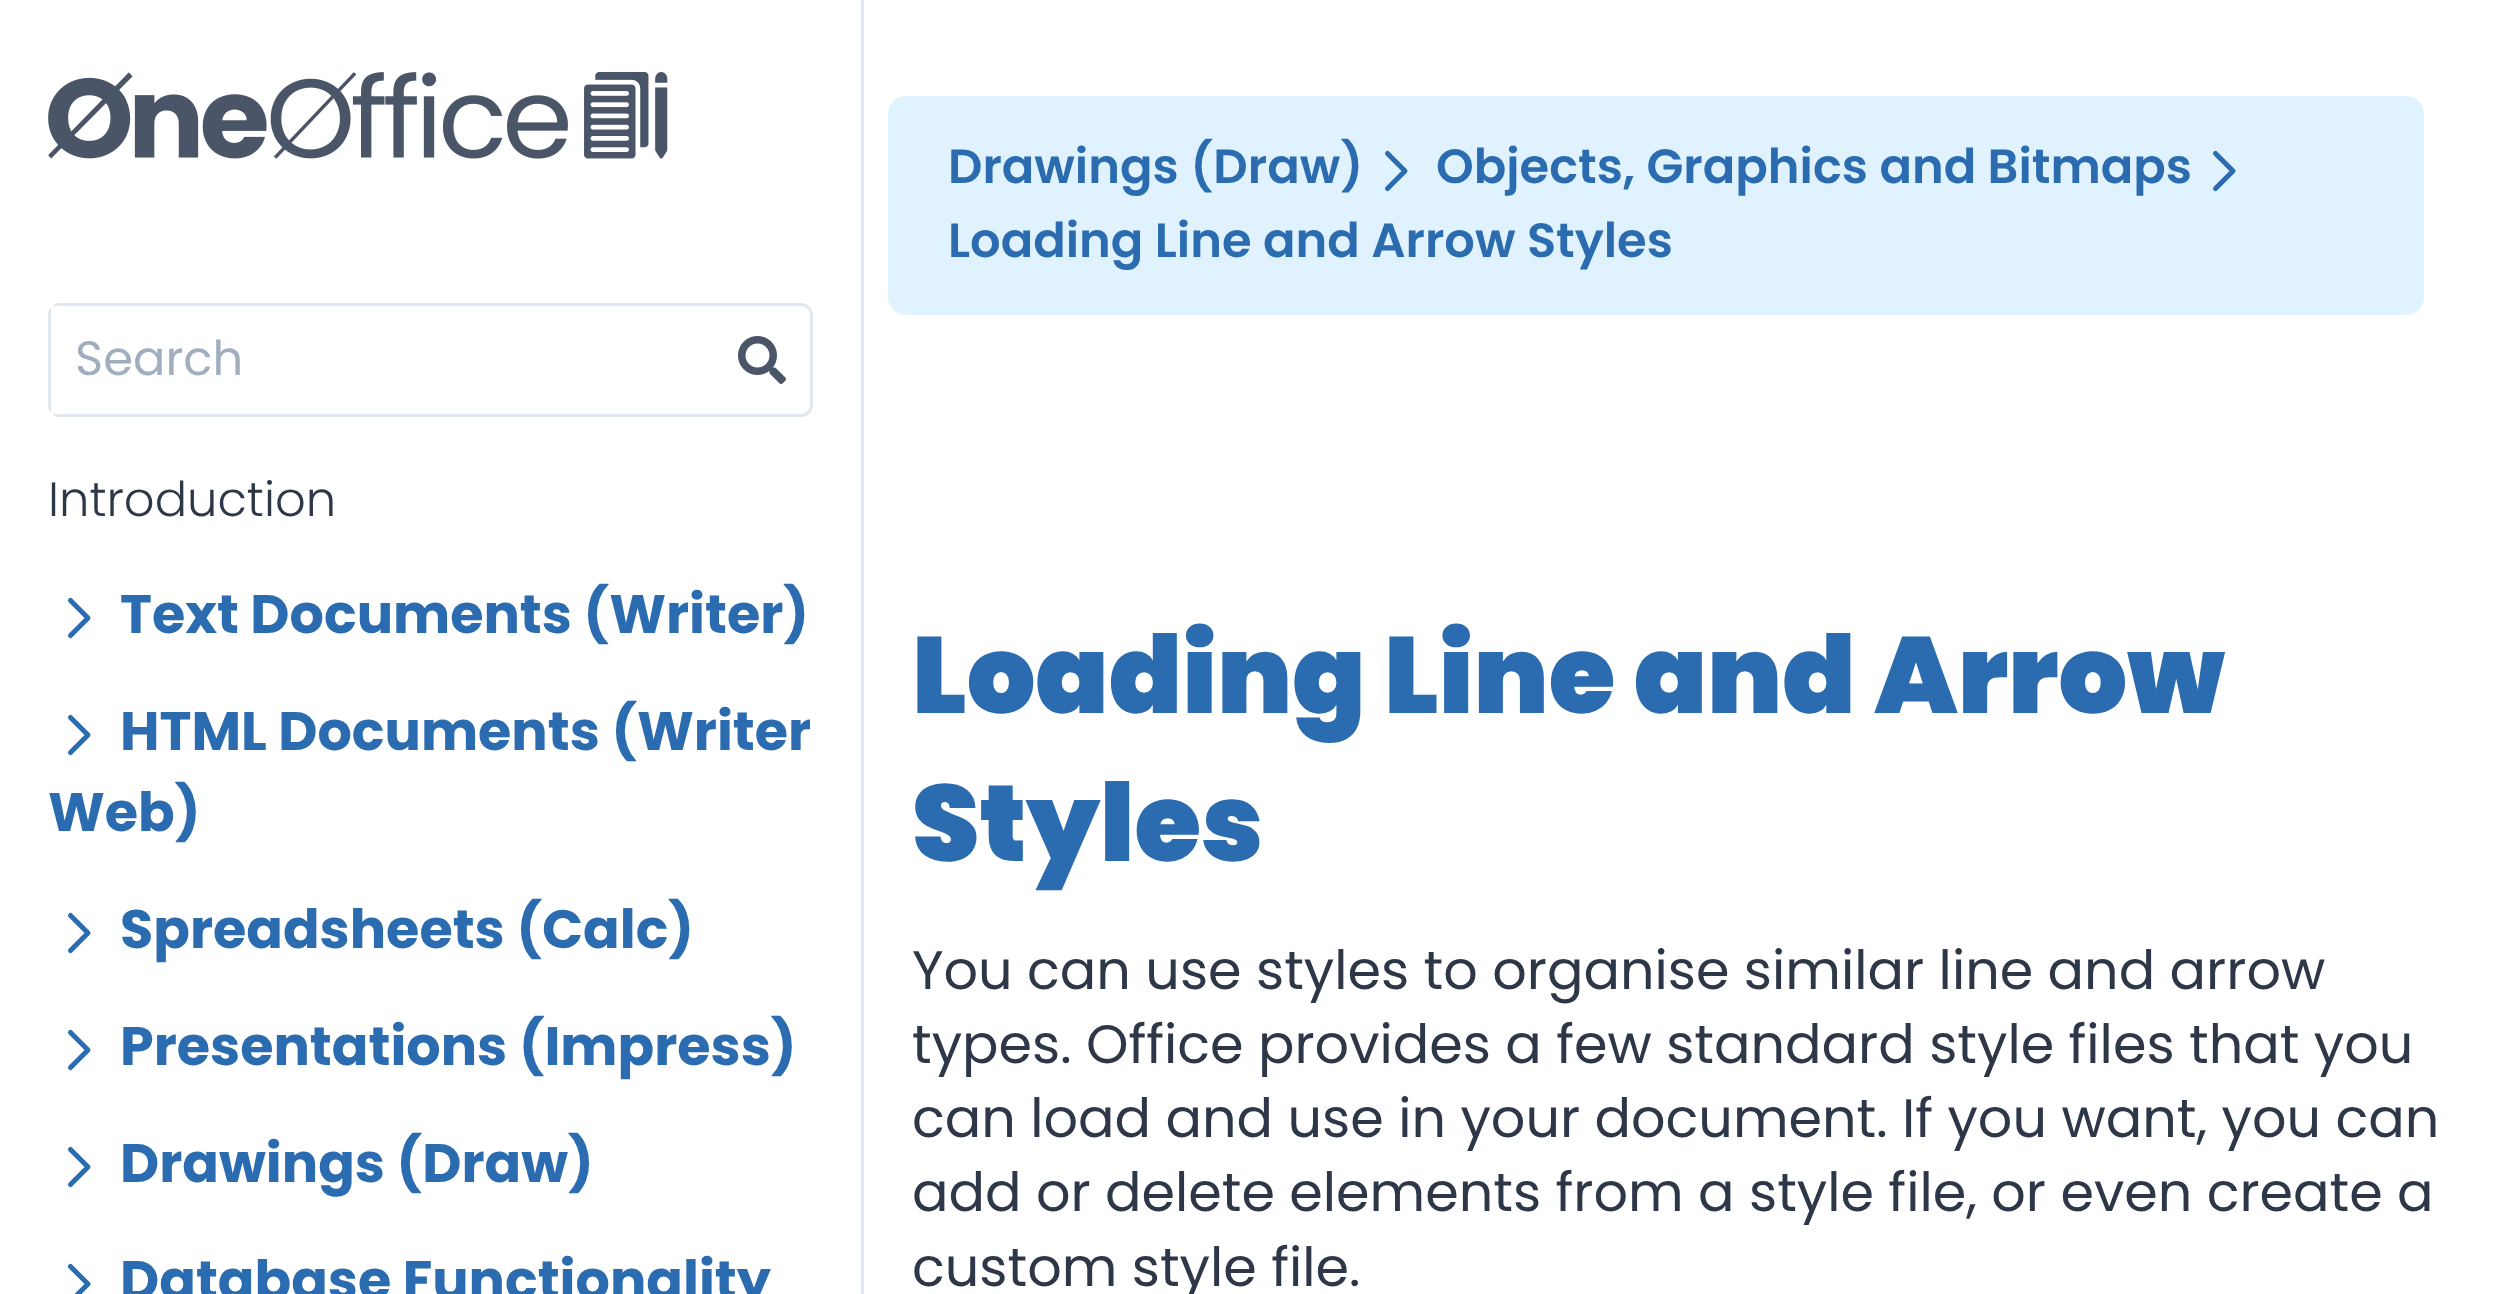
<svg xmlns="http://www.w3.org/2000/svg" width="2495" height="1294">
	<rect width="100%" height="100%" fill="#FFFFFF" />
	<rect x="861" y="0" width="3" height="1294" fill="#E2E8F0" />
	<image x="48" y="72" width="620" height="87" href="assets/img1.png" />
	<rect x="49.5" y="304.5" width="762" height="111" rx="10.5" fill="none" stroke="#E2E8F0" stroke-width="3" />
	<rect x="51" y="306" width="8" height="108" fill="#FFFFFF" />
	<text x="75" y="375" font-family="Poppins" font-size="48" fill="#A0AEC0">Search</text>
	<image x="738" y="336" width="48" height="48" href="assets/img2.png" />
	<text x="48" y="516" font-family="Poppins" font-size="48" font-weight="300" fill="#2D3748">Introduction</text>
	<path d="M70.5 600.5L88 618L70.5 635.5" fill="none" stroke="#2B6CB0" stroke-width="5" stroke-linecap="round" stroke-linejoin="round" />
	<text x="120" y="633" font-family="Poppins" font-size="54" font-weight="700" fill="#2B6CB0">Text Documents (Writer)</text>
	<path d="M70.5 717.5L88 735L70.5 752.5" fill="none" stroke="#2B6CB0" stroke-width="5" stroke-linecap="round" stroke-linejoin="round" />
	<g font-family="Poppins" font-size="54" font-weight="700" fill="#2B6CB0">
		<text x="120" y="750">HTML Documents (Writer</text>
		<text x="48" y="831">Web)</text>
	</g>
	<path d="M70.5 915.5L88 933L70.5 950.5" fill="none" stroke="#2B6CB0" stroke-width="5" stroke-linecap="round" stroke-linejoin="round" />
	<text x="120" y="948" font-family="Poppins" font-size="54" font-weight="700" fill="#2B6CB0">Spreadsheets (Calc)</text>
	<path d="M70.5 1032.5L88 1050L70.5 1067.5" fill="none" stroke="#2B6CB0" stroke-width="5" stroke-linecap="round" stroke-linejoin="round" />
	<text x="120" y="1065" font-family="Poppins" font-size="54" font-weight="700" fill="#2B6CB0">Presentations (Impress)</text>
	<path d="M70.5 1149.5L88 1167L70.5 1184.5" fill="none" stroke="#2B6CB0" stroke-width="5" stroke-linecap="round" stroke-linejoin="round" />
	<text x="120" y="1182" font-family="Poppins" font-size="54" font-weight="700" fill="#2B6CB0">Drawings (Draw)</text>
	<path d="M70.5 1266.5L88 1284L70.5 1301.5" fill="none" stroke="#2B6CB0" stroke-width="5" stroke-linecap="round" stroke-linejoin="round" />
	<text x="120" y="1299" font-family="Poppins" font-size="54" font-weight="700" fill="#2B6CB0">Database Functionality</text>
	<rect x="888" y="96" width="1536" height="219" rx="18" fill="#E0F2FE" />
	<text x="948" y="183" font-family="Poppins" font-size="48" font-weight="600" fill="#2B6CB0">Drawings (Draw)</text>
	<path d="M1387.5 153.5L1405 171L1387.5 188.5" fill="none" stroke="#2B6CB0" stroke-width="5" stroke-linecap="round" stroke-linejoin="round" />
	<text x="1436" y="183" font-family="Poppins" font-size="48" font-weight="600" fill="#2B6CB0">Objects, Graphics and Bitmaps</text>
	<path d="M2215.5 153.5L2233 171L2215.5 188.5" fill="none" stroke="#2B6CB0" stroke-width="5" stroke-linecap="round" stroke-linejoin="round" />
	<text x="948" y="257" font-family="Poppins" font-size="48" font-weight="600" fill="#2B6CB0">Loading Line and Arrow Styles</text>
	<g font-family="Poppins" font-size="108" font-weight="900" fill="#2B6CB0">
		<text x="912" y="713">Loading Line and Arrow</text>
		<text x="912" y="861">Styles</text>
	</g>
	<g font-family="Poppins" font-size="54" fill="#2D3748">
		<text x="912" y="989">You can use styles to organise similar line and arrow</text>
		<text x="912" y="1063">types. Office provides a few standard style files that you</text>
		<text x="912" y="1137">can load and use in your document. If you want, you can</text>
		<text x="912" y="1211">add or delete elements from a style file, or even create a</text>
		<text x="912" y="1286">custom style file.</text>
	</g>
</svg>
